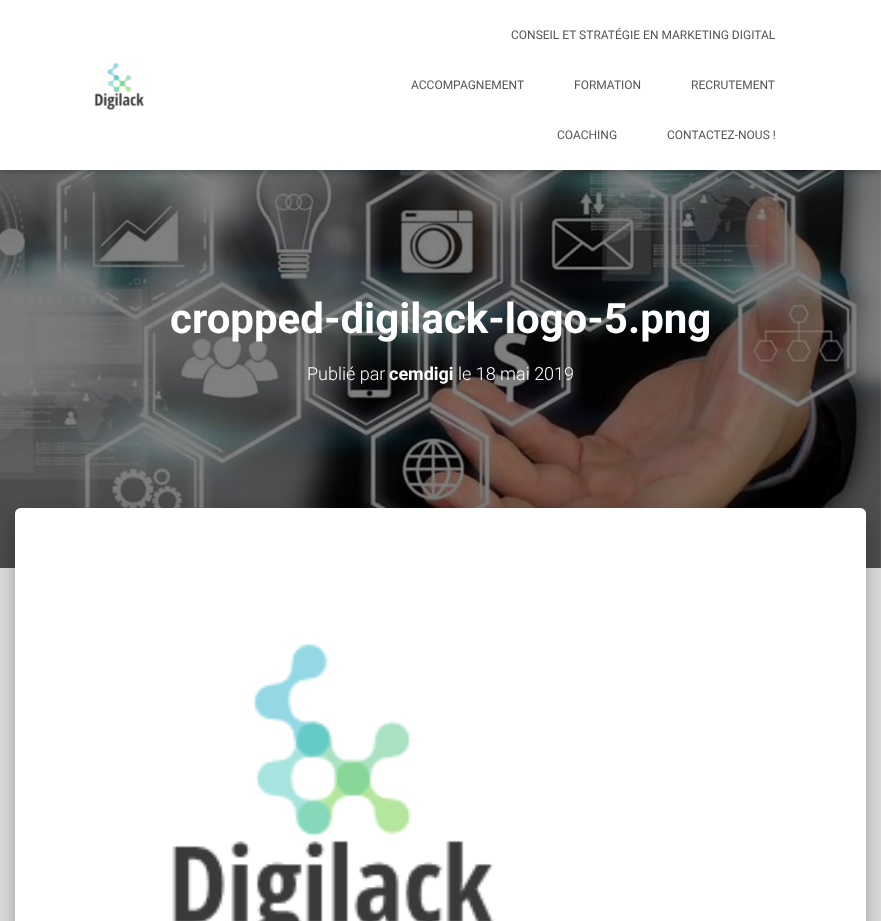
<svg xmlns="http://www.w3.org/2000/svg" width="881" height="921">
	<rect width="100%" height="100%" fill="#E5E5E5" />
	<image x="0" y="170" width="881" height="398" href="assets/img2.png" />
	<rect x="2" y="6" width="877" height="166" fill="#000000" fill-opacity="0.1" filter="blur(2.5px)" />
	<rect x="0" y="1" width="881" height="170" fill="#000000" fill-opacity="0.12" filter="blur(5px)" />
	<rect x="6" y="7" width="869" height="158" fill="#000000" fill-opacity="0.42" filter="blur(5px)" />
	<rect x="0" y="0" width="881" height="170" fill="#FFFFFF" />
	<image x="94" y="63" width="50" height="47" href="assets/img1.png" />
	<g font-family="Roboto" font-size="12" fill="#555555">
		<text x="511" y="39">CONSEIL ET STRATÉGIE EN MARKETING DIGITAL</text>
		<text x="411" y="89">ACCOMPAGNEMENT</text>
		<text x="574" y="89">FORMATION</text>
		<text x="691" y="89">RECRUTEMENT</text>
		<text x="557" y="139">COACHING</text>
		<text x="667" y="139">CONTACTEZ-NOUS !</text>
	</g>
	<text x="170" y="333" font-family="Roboto" font-size="42" font-weight="700" fill="#FFFFFF">cropped-digilack-logo-5.png</text>
	<text x="307" y="380" font-family="Roboto" font-size="18" font-weight="300" fill="#FFFFFF">Publié par</text>
	<text x="389" y="380" font-family="Roboto" font-size="18" font-weight="700" fill="#FFFFFF">cemdigi</text>
	<text x="458" y="380" font-family="Roboto" font-size="18" font-weight="300" fill="#FFFFFF">le 18 mai 2019</text>
	<rect x="20" y="521" width="841" height="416" rx="1" fill="#000000" fill-opacity="0.2" filter="blur(5px)" />
	<rect x="10" y="509" width="861" height="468" rx="11" fill="#000000" fill-opacity="0.12" filter="blur(15px)" />
	<rect x="13" y="522" width="855" height="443" rx="8" fill="#000000" fill-opacity="0.14" filter="blur(12px)" />
	<path d="M21 508H860C863.5 508 866 510.5 866 514V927H15V514C15 510.5 17.5 508 21 508Z" fill="#FFFFFF" />
	<image x="172" y="643" width="322" height="278" href="assets/img3.png" />
</svg>
